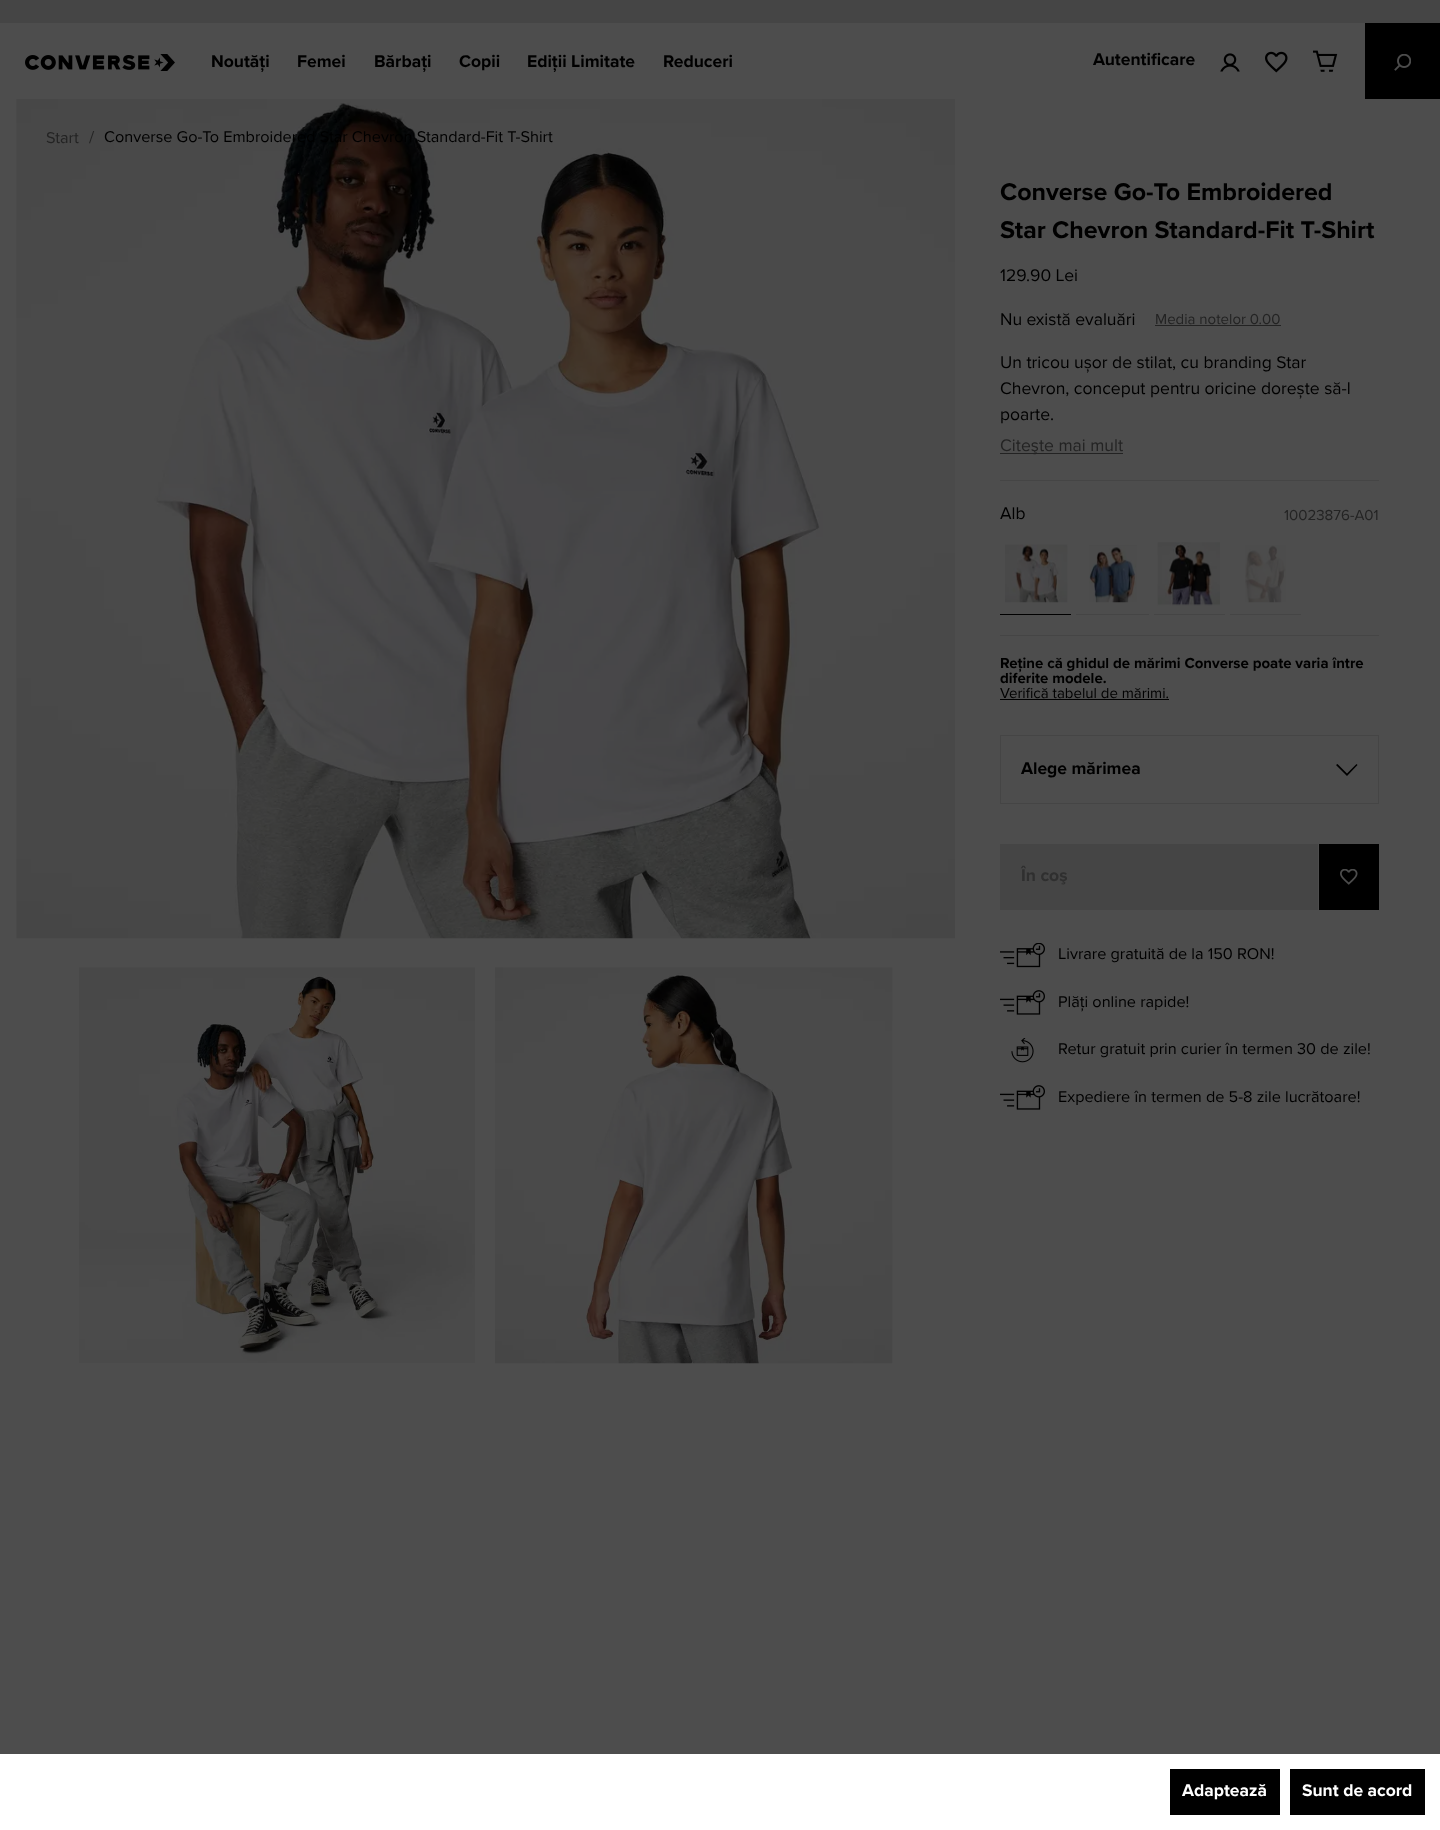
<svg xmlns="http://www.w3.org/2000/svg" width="1440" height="1830">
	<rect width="100%" height="100%" fill="#4D4D4D" />
	<rect x="0" y="0" width="1440" height="23" fill="#454545" />
	<image x="25" y="54" width="150" height="17" href="assets/img1.png" />
	<g font-family="Proxima Nova" font-size="17.5" font-weight="700" fill="#000000">
		<text x="211" y="67">Noutăți</text>
		<text x="297" y="67">Femei</text>
		<text x="374" y="67">Bărbați</text>
		<text x="459" y="67">Copii</text>
		<text x="527" y="67">Ediții Limitate</text>
		<text x="663" y="67">Reduceri</text>
		<text x="1093" y="65">Autentificare</text>
	</g>
	<image x="1220" y="53" width="20" height="19" href="assets/img2.png" />
	<image x="1265" y="51" width="23" height="22" href="assets/img3.png" />
	<image x="1313" y="50" width="25" height="22" href="assets/img4.png" />
	<rect x="1365" y="23" width="75" height="76" fill="#000000" />
	<image x="1394" y="54" width="17" height="17" href="assets/img5.png" />
	<image x="16" y="99" width="939" height="840" href="assets/img6.png" />
	<text x="46" y="143" font-family="Proxima Nova" font-size="16.25" fill="#232323">Start</text>
	<text x="89" y="143" font-family="Proxima Nova" font-size="17.5" fill="#232323">/</text>
	<text x="104" y="142" font-family="Proxima Nova" font-size="16.25" fill="#000000">Converse Go-To Embroidered Star Chevron Standard-Fit T-Shirt</text>
	<image x="79" y="967" width="396" height="396" href="assets/img7.png" />
	<image x="495" y="967" width="398" height="397" href="assets/img8.png" />
	<g font-family="Proxima Nova" font-size="25" font-weight="700" fill="#000000">
		<text x="1000" y="200">Converse Go-To Embroidered</text>
		<text x="1000" y="238">Star Chevron Standard-Fit T-Shirt</text>
	</g>
	<g font-family="Proxima Nova" font-size="17.5" fill="#000000">
		<text x="1000" y="281">129.90 Lei</text>
		<text x="1000" y="325">Nu există evaluări</text>
	</g>
	<text x="1155" y="324" font-family="Proxima Nova" font-size="15" fill="#232323">Media notelor 0.00</text>
	<rect x="1155" y="325" width="126" height="1" fill="#232323" />
	<g font-family="Proxima Nova" font-size="17.5" fill="#000000">
		<text x="1000" y="368">Un tricou ușor de stilat, cu branding Star</text>
		<text x="1000" y="394">Chevron, conceput pentru oricine dorește să-l</text>
		<text x="1000" y="420">poarte.</text>
	</g>
	<rect x="1000" y="453" width="123" height="1" fill="#232323" />
	<text x="1000" y="451" font-family="Proxima Nova" font-size="17.5" fill="#232323">Citeşte mai mult</text>
	<rect x="1000" y="480" width="379" height="1" fill="#454545" />
	<rect x="1000" y="635" width="379" height="1" fill="#454545" />
	<text x="1000" y="519" font-family="Proxima Nova" font-size="17.5" fill="#000000">Alb</text>
	<text x="1284" y="520" font-family="Proxima Nova" font-size="15" fill="#232323">10023876-A01</text>
	<rect x="1000" y="614" width="71" height="1" fill="#000000" />
	<image x="1005" y="544" width="63" height="59" href="assets/img9.png" />
	<rect x="1076" y="614" width="73" height="1" fill="#454545" />
	<image x="1089" y="544" width="48" height="59" href="assets/img10.png" />
	<rect x="1154" y="614" width="71" height="1" fill="#454545" />
	<image x="1157" y="542" width="63" height="64" href="assets/img11.png" />
	<rect x="1230" y="614" width="71" height="1" fill="#454545" />
	<image x="1245" y="545" width="41" height="58" href="assets/img12.png" />
	<g font-family="Proxima Nova" font-size="15" font-weight="700" fill="#000000">
		<text x="1000" y="668">Reține că ghidul de mărimi Converse poate varia între</text>
		<text x="1000" y="683">diferite modele.</text>
	</g>
	<text x="1000" y="698" font-family="Proxima Nova" font-size="15" fill="#000000">Verifică tabelul de mărimi.</text>
	<rect x="1000" y="699" width="169" height="1" fill="#000000" />
	<rect x="1000.5" y="735.5" width="378" height="68" fill="none" stroke="#454545" />
	<text x="1021" y="774" font-family="Proxima Nova" font-size="17.5" font-weight="700" fill="#000000">Alege mărimea</text>
	<path d="M1356.5 764L1347 773.5L1337.5 764L1336 765L1347 776L1357.5 765Z" fill="#000000" />
	<rect x="1000" y="844" width="318" height="66" fill="#454545" />
	<text x="1021" y="881" font-family="Proxima Nova" font-size="17.5" font-weight="700" fill="#2F2F2F">În coş</text>
	<rect x="1319" y="844" width="60" height="66" fill="#000000" />
	<image x="1340" y="869" width="18" height="16" href="assets/img13.png" />
	<image x="1000" y="943" width="45" height="25" href="assets/img14.png" />
	<text x="1058" y="959" font-family="Proxima Nova" font-size="16.25" fill="#000000">Livrare gratuită de la 150 RON!</text>
	<image x="1000" y="990" width="45" height="25" href="assets/img15.png" />
	<text x="1058" y="1007" font-family="Proxima Nova" font-size="16.25" fill="#000000">Plăți online rapide!</text>
	<image x="1011" y="1038" width="23" height="25" href="assets/img16.png" />
	<text x="1058" y="1054" font-family="Proxima Nova" font-size="16.25" fill="#000000">Retur gratuit prin curier în termen 30 de zile!</text>
	<image x="1000" y="1085" width="45" height="25" href="assets/img15.png" />
	<text x="1058" y="1102" font-family="Proxima Nova" font-size="16.25" fill="#000000">Expediere în termen de 5-8 zile lucrătoare!</text>
	<rect x="0" y="1754" width="1440" height="76" fill="#FFFFFF" />
	<rect x="1170" y="1769" width="110" height="46" fill="#000000" />
	<text x="1182" y="1796" font-family="Proxima Nova" font-size="17.5" font-weight="700" fill="#FFFFFF">Adaptează</text>
	<rect x="1290" y="1769" width="135" height="46" fill="#000000" />
	<text x="1302" y="1796" font-family="Proxima Nova" font-size="17.5" font-weight="700" fill="#FFFFFF">Sunt de acord</text>
</svg>
